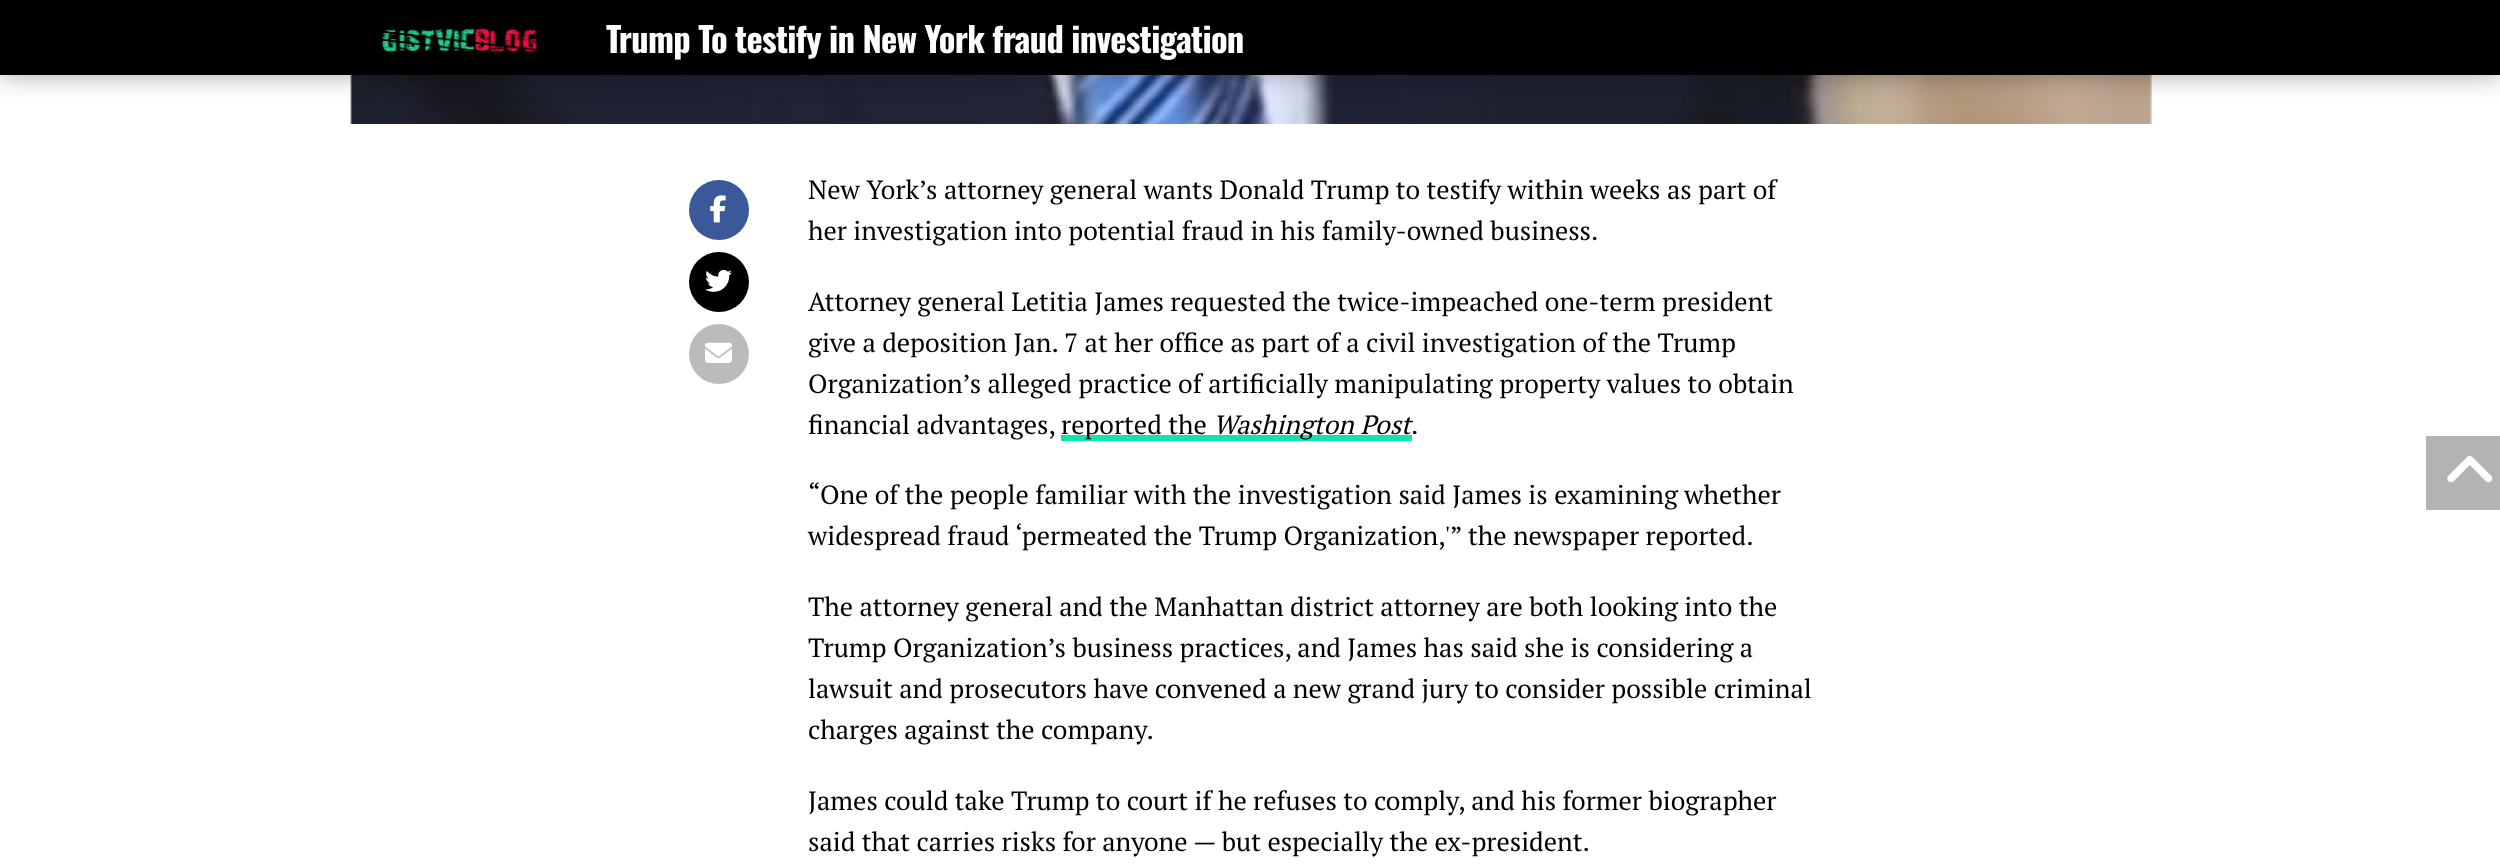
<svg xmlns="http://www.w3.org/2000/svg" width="2500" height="865">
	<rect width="100%" height="100%" fill="#FFFFFF" />
	<image x="350" y="75" width="1802" height="49" href="assets/img2.png" />
	<rect x="0" y="2" width="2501" height="75" fill="#000000" fill-opacity="0.3" filter="blur(12px)" />
	<rect x="0" y="0" width="2500" height="75" fill="#000000" />
	<image x="382" y="28" width="155" height="24" href="assets/img1.png" />
	<text x="606" y="53" font-family="Oswald" font-size="34.5" font-weight="700" letter-spacing="-0.7" fill="#FFFFFF">Trump To testify in New York fraud investigation</text>
	<circle cx="719" cy="210" r="30" fill="#3B5998" />
	<image x="710" y="195" width="16" height="28" href="assets/img3.png" />
	<circle cx="719" cy="282" r="30" fill="#000000" />
	<image x="705" y="269" width="27" height="23" href="assets/img4.png" />
	<circle cx="719" cy="354" r="30" fill="#BBBBBB" />
	<image x="705" y="342" width="27" height="21" href="assets/img5.png" />
	<g font-family="PT Serif" font-size="26.4" fill="#000000">
		<text x="808" y="199">New York’s attorney general wants Donald Trump to testify within weeks as part of</text>
		<text x="808" y="240">her investigation into potential fraud in his family-owned business.</text>
		<text x="808" y="311">Attorney general Letitia James requested the twice-impeached one-term president</text>
		<text x="808" y="352">give a deposition Jan. 7 at her office as part of a civil investigation of the Trump</text>
		<text x="808" y="393">Organization’s alleged practice of artificially manipulating property values to obtain</text>
		<text x="808" y="434">financial advantages,</text>
	</g>
	<rect x="1061" y="435" width="351" height="6" fill="#0BE6AF" />
	<text x="1061" y="434" font-family="PT Serif" font-size="26.4" fill="#000000">reported the</text>
	<text x="1213" y="434" font-family="PT Serif" font-size="26.4" font-style="italic" fill="#000000">Washington Post</text>
	<g font-family="PT Serif" font-size="26.4" fill="#000000">
		<text x="1411" y="434">.</text>
		<text x="808" y="504">“One of the people familiar with the investigation said James is examining whether</text>
		<text x="808" y="545">widespread fraud ‘permeated the Trump Organization,'” the newspaper reported.</text>
		<text x="808" y="616">The attorney general and the Manhattan district attorney are both looking into the</text>
		<text x="808" y="657">Trump Organization’s business practices, and James has said she is considering a</text>
		<text x="808" y="698">lawsuit and prosecutors have convened a new grand jury to consider possible criminal</text>
		<text x="808" y="739">charges against the company.</text>
		<text x="808" y="810">James could take Trump to court if he refuses to comply, and his former biographer</text>
		<text x="808" y="851">said that carries risks for anyone — but especially the ex-president.</text>
	</g>
	<rect x="2426" y="436" width="74" height="74" fill="#B3B3B3" />
	<image x="2447" y="456" width="46" height="27" href="assets/img6.png" />
</svg>
